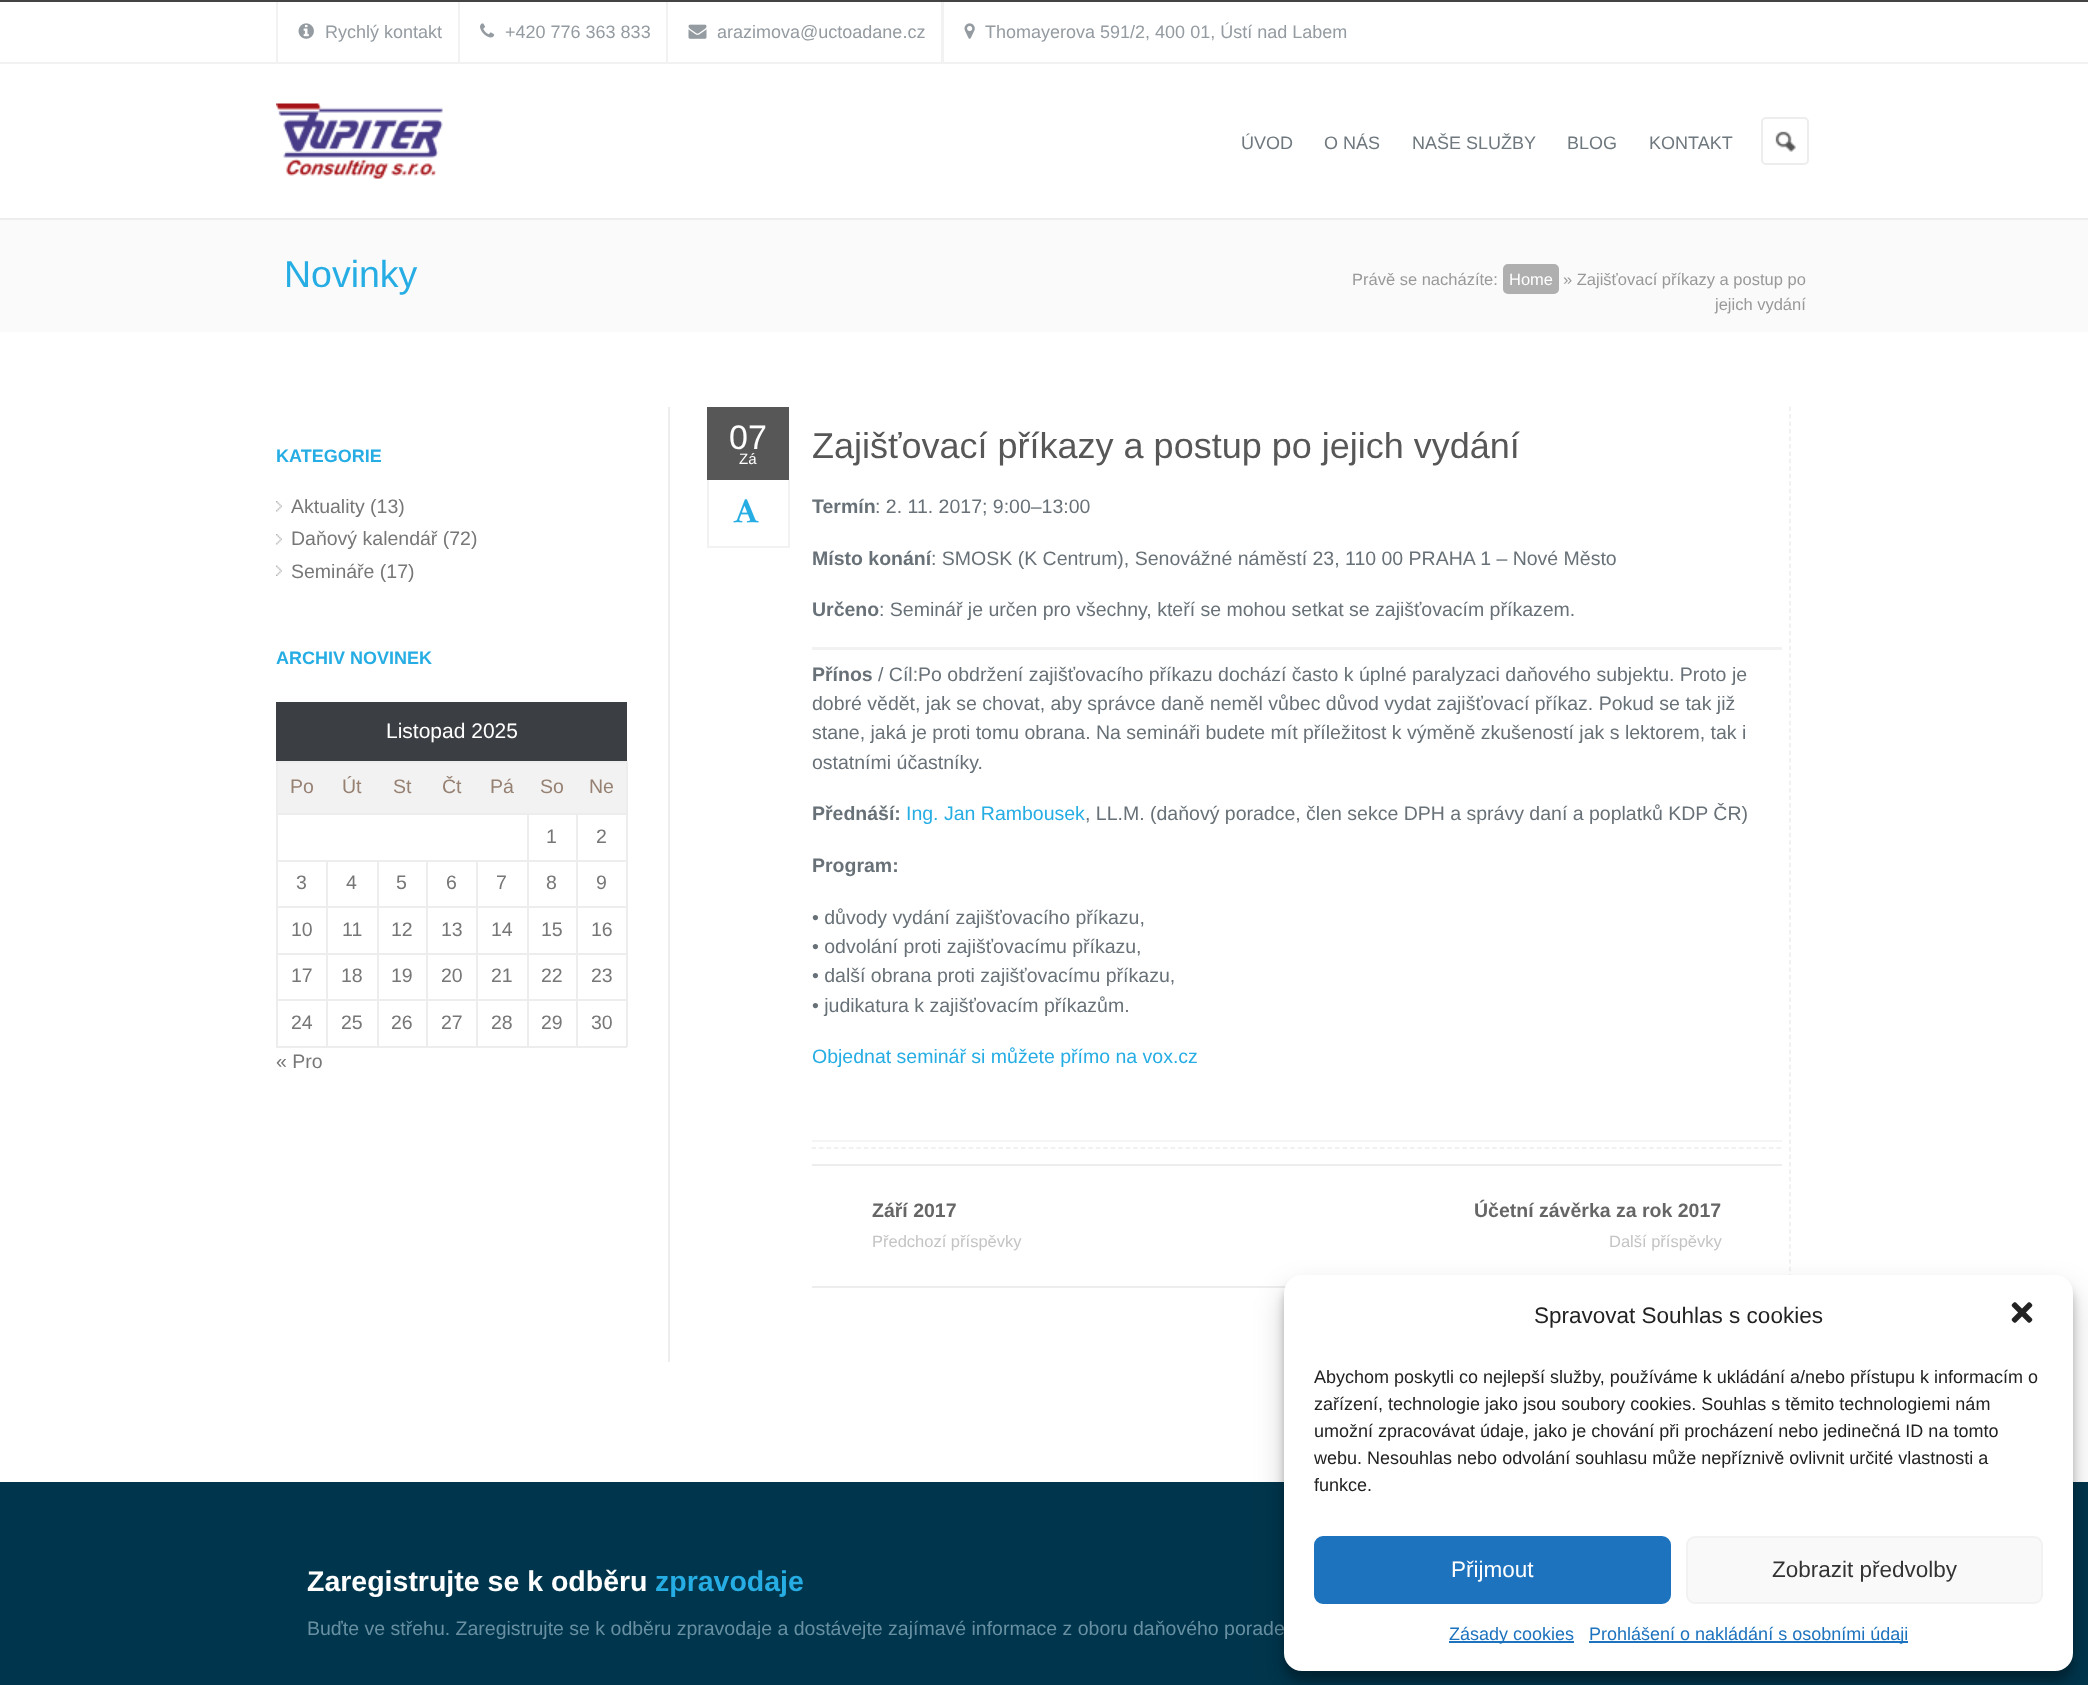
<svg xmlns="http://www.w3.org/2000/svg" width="2088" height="1685">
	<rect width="100%" height="100%" fill="#FFFFFF" />
	<rect x="0" y="0" width="2088" height="2" fill="#444444" />
	<rect x="0" y="218" width="2088" height="2" fill="#EDEDED" />
	<rect x="0" y="62" width="2088" height="2" fill="#F2F2F2" />
	<rect x="276" y="2" width="2" height="60" fill="#F2F2F2" />
	<image x="298" y="23" width="16" height="16" href="assets/img1.png" />
	<text x="325" y="38" font-family="Liberation Sans" font-size="18" fill="#949BA1">Rychlý kontakt</text>
	<rect x="458" y="2" width="2" height="60" fill="#F2F2F2" />
	<image x="480" y="23" width="15" height="15" href="assets/img2.png" />
	<text x="505" y="38" font-family="Liberation Sans" font-size="18" fill="#949BA1">+420 776 363 833</text>
	<rect x="941" y="2" width="3" height="60" fill="#F2F2F2" />
	<rect x="666" y="2" width="2" height="60" fill="#F2F2F2" />
	<image x="688" y="24" width="19" height="15" href="assets/img3.png" />
	<text x="717" y="38" font-family="Liberation Sans" font-size="18" fill="#949BA1">arazimova@uctoadane.cz</text>
	<image x="964" y="23" width="11" height="16" href="assets/img4.png" />
	<text x="985" y="38" font-family="Liberation Sans" font-size="18" fill="#949BA1">Thomayerova 591/2, 400 01, Ústí nad Labem</text>
	<image x="276" y="103" width="167" height="76" href="assets/img5.png" />
	<g font-family="Liberation Sans" font-size="18" fill="#6E787E">
		<text x="1241" y="149">ÚVOD</text>
		<text x="1324" y="149">O NÁS</text>
		<text x="1412" y="149">NAŠE SLUŽBY</text>
		<text x="1567" y="149">BLOG</text>
		<text x="1649" y="149">KONTAKT</text>
	</g>
	<image x="1775" y="131" width="21" height="21" href="assets/img6.png" />
	<rect x="1762" y="118" width="46" height="46" rx="4" fill="none" stroke="#EDEDED" stroke-width="2" />
	<rect x="0" y="220" width="2088" height="112" fill="#FAFAFA" />
	<text x="284" y="287" font-family="Liberation Sans" font-size="37.5" fill="#26ADE4">Novinky</text>
	<text x="1352" y="285" font-family="Liberation Sans" font-size="16.5" fill="#999999">Právě se nacházíte:</text>
	<rect x="1503" y="264" width="56" height="30" rx="5" fill="#AFAFAF" />
	<text x="1509" y="285" font-family="Liberation Sans" font-size="16.5" fill="#FFFFFF">Home</text>
	<g font-family="Liberation Sans" font-size="16.5" fill="#999999">
		<text x="1563" y="285">» Zajišťovací příkazy a postup po</text>
		<text x="1715" y="310">jejich vydání</text>
	</g>
	<text x="276" y="462" font-family="Liberation Sans" font-size="18" font-weight="700" fill="#26ADE4">KATEGORIE</text>
	<image x="276" y="501" width="6" height="11" href="assets/img7.png" />
	<text x="291" y="513" font-family="Liberation Sans" font-size="19.5" fill="#777777">Aktuality (13)</text>
	<image x="276" y="534" width="6" height="11" href="assets/img7.png" />
	<text x="291" y="545" font-family="Liberation Sans" font-size="19.5" fill="#777777">Daňový kalendář (72)</text>
	<image x="276" y="565" width="6" height="11" href="assets/img8.png" />
	<text x="291" y="578" font-family="Liberation Sans" font-size="19.5" fill="#777777">Semináře (17)</text>
	<text x="276" y="664" font-family="Liberation Sans" font-size="18" font-weight="700" fill="#26ADE4">ARCHIV NOVINEK</text>
	<rect x="276" y="702" width="351" height="59" fill="#3B3E42" />
	<text x="386" y="738" font-family="Liberation Sans" font-size="21" fill="#FFFFFF">Listopad 2025</text>
	<rect x="278" y="763" width="348" height="50" fill="#F2F2F2" />
	<rect x="276" y="761" width="351" height="2" fill="#EDEDED" />
	<rect x="626" y="761" width="2" height="54" fill="#EDEDED" />
	<rect x="276" y="813" width="351" height="2" fill="#EDEDED" />
	<rect x="276" y="761" width="2" height="54" fill="#EDEDED" />
	<g font-family="Liberation Sans" font-size="19.5" fill="#968173">
		<text x="290" y="793">Po</text>
		<text x="342" y="793">Út</text>
		<text x="393" y="793">St</text>
		<text x="442" y="793">Čt</text>
		<text x="490" y="793">Pá</text>
		<text x="540" y="793">So</text>
		<text x="589" y="793">Ne</text>
	</g>
	<rect x="576" y="860" width="51" height="2" fill="#EDEDED" />
	<rect x="576" y="906" width="51" height="2" fill="#EDEDED" />
	<rect x="576" y="953" width="51" height="2" fill="#EDEDED" />
	<rect x="576" y="999" width="51" height="2" fill="#EDEDED" />
	<rect x="626" y="999" width="2" height="48" fill="#EDEDED" />
	<rect x="576" y="1046" width="51" height="2" fill="#EDEDED" />
	<rect x="576" y="999" width="2" height="48" fill="#EDEDED" />
	<rect x="527" y="999" width="51" height="2" fill="#EDEDED" />
	<rect x="576" y="953" width="2" height="48" fill="#EDEDED" />
	<rect x="527" y="953" width="51" height="2" fill="#EDEDED" />
	<rect x="576" y="906" width="2" height="48" fill="#EDEDED" />
	<rect x="527" y="906" width="51" height="2" fill="#EDEDED" />
	<rect x="576" y="860" width="2" height="48" fill="#EDEDED" />
	<rect x="527" y="860" width="51" height="2" fill="#EDEDED" />
	<rect x="527" y="1046" width="51" height="2" fill="#EDEDED" />
	<rect x="527" y="999" width="2" height="48" fill="#EDEDED" />
	<rect x="476" y="999" width="52" height="2" fill="#EDEDED" />
	<rect x="527" y="953" width="2" height="48" fill="#EDEDED" />
	<rect x="476" y="953" width="52" height="2" fill="#EDEDED" />
	<rect x="527" y="906" width="2" height="48" fill="#EDEDED" />
	<rect x="476" y="906" width="52" height="2" fill="#EDEDED" />
	<rect x="527" y="860" width="2" height="48" fill="#EDEDED" />
	<rect x="476" y="860" width="52" height="2" fill="#EDEDED" />
	<rect x="527" y="813" width="2" height="48" fill="#EDEDED" />
	<text x="546" y="843" font-family="Liberation Sans" font-size="19.5" fill="#777777">1</text>
	<rect x="576" y="813" width="2" height="48" fill="#EDEDED" />
	<text x="596" y="843" font-family="Liberation Sans" font-size="19.5" fill="#777777">2</text>
	<rect x="476" y="1046" width="52" height="2" fill="#EDEDED" />
	<rect x="476" y="999" width="2" height="48" fill="#EDEDED" />
	<rect x="426" y="999" width="51" height="2" fill="#EDEDED" />
	<rect x="476" y="953" width="2" height="48" fill="#EDEDED" />
	<rect x="426" y="953" width="51" height="2" fill="#EDEDED" />
	<rect x="476" y="906" width="2" height="48" fill="#EDEDED" />
	<rect x="426" y="906" width="51" height="2" fill="#EDEDED" />
	<rect x="476" y="860" width="2" height="48" fill="#EDEDED" />
	<rect x="426" y="860" width="51" height="2" fill="#EDEDED" />
	<rect x="426" y="1046" width="51" height="2" fill="#EDEDED" />
	<rect x="426" y="999" width="2" height="48" fill="#EDEDED" />
	<rect x="377" y="999" width="51" height="2" fill="#EDEDED" />
	<rect x="426" y="953" width="2" height="48" fill="#EDEDED" />
	<rect x="377" y="953" width="51" height="2" fill="#EDEDED" />
	<rect x="426" y="906" width="2" height="48" fill="#EDEDED" />
	<rect x="377" y="906" width="51" height="2" fill="#EDEDED" />
	<rect x="426" y="860" width="2" height="48" fill="#EDEDED" />
	<rect x="377" y="860" width="51" height="2" fill="#EDEDED" />
	<rect x="377" y="1046" width="51" height="2" fill="#EDEDED" />
	<rect x="377" y="999" width="2" height="48" fill="#EDEDED" />
	<rect x="326" y="999" width="52" height="2" fill="#EDEDED" />
	<rect x="377" y="953" width="2" height="48" fill="#EDEDED" />
	<rect x="326" y="953" width="52" height="2" fill="#EDEDED" />
	<rect x="377" y="906" width="2" height="48" fill="#EDEDED" />
	<rect x="326" y="906" width="52" height="2" fill="#EDEDED" />
	<rect x="377" y="860" width="2" height="48" fill="#EDEDED" />
	<rect x="326" y="860" width="52" height="2" fill="#EDEDED" />
	<rect x="326" y="1046" width="52" height="2" fill="#EDEDED" />
	<rect x="326" y="999" width="2" height="48" fill="#EDEDED" />
	<rect x="276" y="999" width="51" height="2" fill="#EDEDED" />
	<rect x="326" y="953" width="2" height="48" fill="#EDEDED" />
	<rect x="276" y="953" width="51" height="2" fill="#EDEDED" />
	<rect x="326" y="906" width="2" height="48" fill="#EDEDED" />
	<rect x="276" y="906" width="51" height="2" fill="#EDEDED" />
	<rect x="326" y="860" width="2" height="48" fill="#EDEDED" />
	<rect x="276" y="860" width="51" height="2" fill="#EDEDED" />
	<rect x="276" y="1046" width="51" height="2" fill="#EDEDED" />
	<rect x="276" y="999" width="2" height="48" fill="#EDEDED" />
	<rect x="276" y="953" width="2" height="48" fill="#EDEDED" />
	<rect x="276" y="906" width="2" height="48" fill="#EDEDED" />
	<rect x="276" y="813" width="2" height="95" fill="#EDEDED" />
	<g font-family="Liberation Sans" font-size="19.5" fill="#777777">
		<text x="296" y="889">3</text>
		<text x="346" y="889">4</text>
		<text x="396" y="889">5</text>
		<text x="446" y="889">6</text>
		<text x="496" y="889">7</text>
		<text x="546" y="889">8</text>
	</g>
	<rect x="626" y="953" width="2" height="48" fill="#EDEDED" />
	<rect x="626" y="906" width="2" height="48" fill="#EDEDED" />
	<rect x="626" y="813" width="2" height="95" fill="#EDEDED" />
	<g font-family="Liberation Sans" font-size="19.5" fill="#777777">
		<text x="596" y="889">9</text>
		<text x="291" y="936">10</text>
		<text x="342" y="936">11</text>
		<text x="391" y="936">12</text>
		<text x="441" y="936">13</text>
		<text x="491" y="936">14</text>
		<text x="541" y="936">15</text>
		<text x="591" y="936">16</text>
		<text x="291" y="982">17</text>
		<text x="341" y="982">18</text>
		<text x="391" y="982">19</text>
		<text x="441" y="982">20</text>
		<text x="491" y="982">21</text>
		<text x="541" y="982">22</text>
		<text x="591" y="982">23</text>
		<text x="291" y="1029">24</text>
		<text x="341" y="1029">25</text>
		<text x="391" y="1029">26</text>
		<text x="441" y="1029">27</text>
		<text x="491" y="1029">28</text>
		<text x="541" y="1029">29</text>
		<text x="591" y="1029">30</text>
		<text x="276" y="1068">« Pro</text>
	</g>
	<path d="M1790 406.5V1362" fill="none" stroke="#EDEDED" stroke-width="1.5" stroke-dasharray="4.5 2.98" />
	<rect x="668" y="407" width="2" height="955" fill="#EDEDED" />
	<rect x="707" y="407" width="82" height="73" fill="#575757" />
	<text x="729" y="449" font-family="Liberation Sans" font-size="34" fill="#FFFFFF">07</text>
	<text x="739" y="464" font-family="Liberation Sans" font-size="15" fill="#FFFFFF">Zá</text>
	<rect x="788" y="480" width="2" height="68" fill="#F2F2F2" />
	<rect x="707" y="546" width="82" height="2" fill="#F2F2F2" />
	<rect x="707" y="480" width="2" height="68" fill="#F2F2F2" />
	<image x="733" y="499" width="26" height="24" href="assets/img9.png" />
	<text x="812" y="458" font-family="Liberation Sans" font-size="36" fill="#575757">Zajišťovací příkazy a postup po jejich vydání</text>
	<text x="812" y="513" font-family="Liberation Sans" font-size="19.5" font-weight="700" fill="#687177">Termín</text>
	<text x="875" y="513" font-family="Liberation Sans" font-size="19.5" fill="#687177">: 2. 11. 2017; 9:00–13:00</text>
	<text x="812" y="565" font-family="Liberation Sans" font-size="19.5" font-weight="700" fill="#687177">Místo konání</text>
	<text x="931" y="565" font-family="Liberation Sans" font-size="19.5" fill="#687177">: SMOSK (K Centrum), Senovážné náměstí 23, 110 00 PRAHA 1 – Nové Město</text>
	<text x="812" y="616" font-family="Liberation Sans" font-size="19.5" font-weight="700" fill="#687177">Určeno</text>
	<text x="879" y="616" font-family="Liberation Sans" font-size="19.5" fill="#687177">: Seminář je určen pro všechny, kteří se mohou setkat se zajišťovacím příkazem.</text>
	<rect x="812" y="647" width="970" height="3" fill="#F2F2F2" />
	<text x="812" y="681" font-family="Liberation Sans" font-size="19.5" font-weight="700" fill="#687177">Přínos</text>
	<g font-family="Liberation Sans" font-size="19.5" fill="#687177">
		<text x="878" y="681">/ Cíl:Po obdržení zajišťovacího příkazu dochází často k úplné paralyzaci daňového subjektu. Proto je</text>
		<text x="812" y="710">dobré vědět, jak se chovat, aby správce daně neměl vůbec důvod vydat zajišťovací příkaz. Pokud se tak již</text>
		<text x="812" y="739">stane, jaká je proti tomu obrana. Na semináři budete mít příležitost k výměně zkušeností jak s lektorem, tak i</text>
		<text x="812" y="769">ostatními účastníky.</text>
	</g>
	<text x="812" y="820" font-family="Liberation Sans" font-size="19.5" font-weight="700" fill="#687177">Přednáší:</text>
	<text x="906" y="820" font-family="Liberation Sans" font-size="19.5" fill="#26ADE4">Ing. Jan Rambousek</text>
	<text x="1085" y="820" font-family="Liberation Sans" font-size="19.5" fill="#687177">, LL.M. (daňový poradce, člen sekce DPH a správy daní a poplatků KDP ČR)</text>
	<text x="812" y="872" font-family="Liberation Sans" font-size="19.5" font-weight="700" fill="#687177">Program:</text>
	<g font-family="Liberation Sans" font-size="19.5" fill="#687177">
		<text x="812" y="924">• důvody vydání zajišťovacího příkazu,</text>
		<text x="812" y="953">• odvolání proti zajišťovacímu příkazu,</text>
		<text x="812" y="982">• další obrana proti zajišťovacímu příkazu,</text>
		<text x="812" y="1012">• judikatura k zajišťovacím příkazům.</text>
	</g>
	<text x="812" y="1063" font-family="Liberation Sans" font-size="19.5" fill="#26ADE4">Objednat seminář si můžete přímo na vox.cz</text>
	<rect x="812" y="1140" width="970" height="2" fill="#F5F5F5" />
	<path d="M811.5 1148H1782" fill="none" stroke="#EDEDED" stroke-width="1.5" stroke-dasharray="4.5 2.98" />
	<rect x="812" y="1164" width="970" height="2" fill="#EDEDED" />
	<rect x="812" y="1286" width="474" height="2" fill="#EDEDED" />
	<text x="872" y="1217" font-family="Liberation Sans" font-size="19.5" font-weight="700" fill="#666666">Září 2017</text>
	<text x="872" y="1247" font-family="Liberation Sans" font-size="16.5" fill="#C4C4C4">Předchozí příspěvky</text>
	<text x="1474" y="1217" font-family="Liberation Sans" font-size="19.5" font-weight="700" fill="#666666">Účetní závěrka za rok 2017</text>
	<text x="1609" y="1247" font-family="Liberation Sans" font-size="16.5" fill="#C4C4C4">Další příspěvky</text>
	<rect x="0" y="1482" width="2088" height="203" fill="#00364D" />
	<text x="307" y="1591" font-family="Liberation Sans" font-size="28.5" font-weight="700" fill="#FFFFFF">Zaregistrujte se k odběru</text>
	<text x="655" y="1591" font-family="Liberation Sans" font-size="28.5" font-weight="700" fill="#26ADE4">zpravodaje</text>
	<text x="307" y="1635" font-family="Liberation Sans" font-size="19.5" fill="#6890A2">Buďte ve střehu. Zaregistrujte se k odběru zpravodaje a dostávejte zajímavé informace z oboru daňového porade</text>
	<rect x="1284" y="1284" width="789" height="396" rx="18" fill="#000000" fill-opacity="0.23" filter="blur(4.5px)" />
	<rect x="1284" y="1290" width="789" height="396" rx="18" fill="#000000" fill-opacity="0.19" filter="blur(15px)" />
	<rect x="1284" y="1275" width="789" height="396" rx="18" fill="#FFFFFF" />
	<text x="1534" y="1323" font-family="Liberation Sans" font-size="22.5" fill="#222222">Spravovat Souhlas s cookies</text>
	<image x="2011" y="1302" width="22" height="21" href="assets/img10.png" />
	<g font-family="Liberation Sans" font-size="18" fill="#222222">
		<text x="1314" y="1383">Abychom poskytli co nejlepší služby, používáme k ukládání a/nebo přístupu k informacím o</text>
		<text x="1314" y="1410">zařízení, technologie jako jsou soubory cookies. Souhlas s těmito technologiemi nám</text>
		<text x="1314" y="1437">umožní zpracovávat údaje, jako je chování při procházení nebo jedinečná ID na tomto</text>
		<text x="1314" y="1464">webu. Nesouhlas nebo odvolání souhlasu může nepříznivě ovlivnit určité vlastnosti a</text>
		<text x="1314" y="1491">funkce.</text>
	</g>
	<rect x="1315" y="1537" width="355" height="66" rx="8" fill="#1E73BE" stroke="#1E73BE" stroke-width="2" />
	<text x="1451" y="1577" font-family="Liberation Sans" font-size="22.5" fill="#FFFFFF">Přijmout</text>
	<rect x="1687" y="1537" width="355" height="66" rx="8" fill="#F9F9F9" stroke="#F2F2F2" stroke-width="2" />
	<text x="1772" y="1577" font-family="Liberation Sans" font-size="22.5" fill="#333333">Zobrazit předvolby</text>
	<rect x="1449" y="1641" width="125" height="2" fill="#1E73BE" />
	<text x="1449" y="1640" font-family="Liberation Sans" font-size="18" fill="#1E73BE">Zásady cookies</text>
	<rect x="1589" y="1641" width="319" height="2" fill="#1E73BE" />
	<text x="1589" y="1640" font-family="Liberation Sans" font-size="18" fill="#1E73BE">Prohlášení o nakládání s osobními údaji</text>
</svg>
